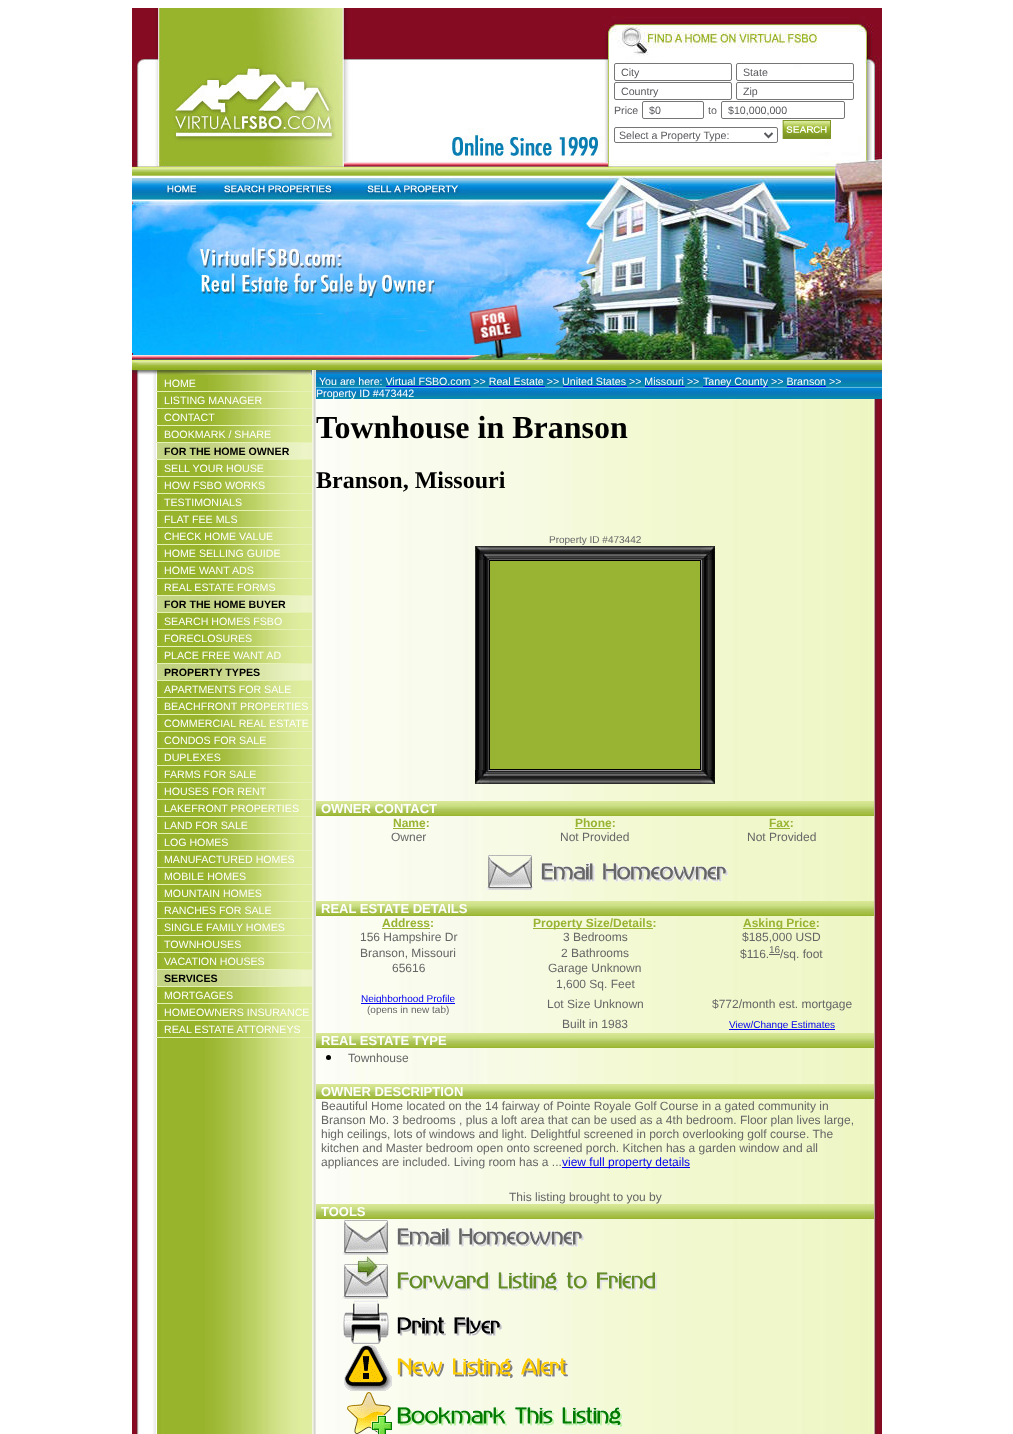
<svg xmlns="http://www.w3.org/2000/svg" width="1013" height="1434">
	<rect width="100%" height="100%" fill="#FFFFFF" />
	<image x="132" y="8" width="477" height="362" href="assets/img1.png" />
	<image x="609" y="8" width="273" height="362" href="assets/img2.png" />
	<rect x="614.5" y="63.5" width="117" height="17" rx="1.5" fill="#FFFFFF" stroke="#767676" />
	<text x="621" y="76" font-family="Liberation Sans" font-size="10.65" fill="#58595D">City</text>
	<rect x="736.5" y="63.5" width="117" height="17" rx="1.5" fill="none" stroke="#767676" />
	<text x="743" y="76" font-family="Liberation Sans" font-size="10.65" fill="#58595D">State</text>
	<rect x="614.5" y="82.5" width="117" height="17" rx="1.5" fill="none" stroke="#767676" />
	<text x="621" y="95" font-family="Liberation Sans" font-size="10.65" fill="#58595D">Country</text>
	<rect x="736.5" y="82.5" width="117" height="17" rx="1.5" fill="none" stroke="#767676" />
	<g font-family="Liberation Sans" font-size="10.65" fill="#58595D">
		<text x="743" y="95">Zip</text>
		<text x="614" y="114">Price</text>
	</g>
	<rect x="642.5" y="101.5" width="61" height="17" rx="1.5" fill="none" stroke="#767676" />
	<g font-family="Liberation Sans" font-size="10.65" fill="#58595D">
		<text x="649" y="114">$0</text>
		<text x="708" y="114">to</text>
	</g>
	<rect x="721.5" y="101.5" width="123" height="17" rx="1.5" fill="none" stroke="#767676" />
	<text x="728" y="114" font-family="Liberation Sans" font-size="10.65" fill="#58595D">$10,000,000</text>
	<rect x="614.5" y="127.5" width="163" height="15" rx="1.5" fill="none" stroke="#767676" />
	<path d="M764.5 133L768.5 137L772.5 133" fill="none" stroke="#58595D" stroke-width="2" />
	<text x="619" y="139" font-family="Liberation Sans" font-size="10.65" fill="#58595D">Select a Property Type:</text>
	<image x="782" y="120" width="49" height="19" href="assets/img3.png" />
	<image x="132" y="375" width="24" height="1059" href="assets/img4.png" />
	<image x="132" y="370" width="25" height="5" href="assets/img5.png" />
	<image x="312" y="370" width="4" height="1064" href="assets/img6.png" />
	<image x="316" y="370" width="566" height="5" href="assets/img7.png" />
	<image x="157" y="375" width="155" height="1059" href="assets/img8.png" />
	<image x="157" y="370" width="155" height="5" href="assets/img9.png" />
	<rect x="205" y="377" width="3" height="14" fill="#98B42C" />
	<image x="208" y="377" width="104" height="14" href="assets/img10.png" />
	<rect x="156" y="391" width="156" height="1" fill="#E6F1B5" />
	<text x="164" y="387" font-family="Liberation Sans" font-size="10.65" fill="#FFFFFF">HOME</text>
	<rect x="205" y="392" width="3" height="16" fill="#98B42C" />
	<image x="208" y="392" width="104" height="16" href="assets/img11.png" />
	<rect x="156" y="408" width="156" height="1" fill="#E6F1B5" />
	<text x="164" y="404" font-family="Liberation Sans" font-size="10.65" fill="#FFFFFF">LISTING MANAGER</text>
	<rect x="205" y="409" width="3" height="16" fill="#98B42C" />
	<image x="208" y="409" width="104" height="16" href="assets/img11.png" />
	<rect x="156" y="425" width="156" height="1" fill="#E6F1B5" />
	<text x="164" y="421" font-family="Liberation Sans" font-size="10.65" fill="#FFFFFF">CONTACT</text>
	<rect x="205" y="426" width="3" height="16" fill="#98B42C" />
	<image x="208" y="426" width="104" height="16" href="assets/img11.png" />
	<rect x="156" y="442" width="156" height="1" fill="#E6F1B5" />
	<text x="164" y="438" font-family="Liberation Sans" font-size="10.65" fill="#FFFFFF">BOOKMARK / SHARE</text>
	<image x="157" y="443" width="155" height="16" href="assets/img12.png" />
	<rect x="156" y="459" width="156" height="1" fill="#E6F1B5" />
	<text x="164" y="455" font-family="Liberation Sans" font-size="10.65" font-weight="700" fill="#000000">FOR THE HOME OWNER</text>
	<rect x="205" y="460" width="3" height="16" fill="#98B42C" />
	<image x="208" y="460" width="104" height="16" href="assets/img11.png" />
	<rect x="156" y="476" width="156" height="1" fill="#E6F1B5" />
	<text x="164" y="472" font-family="Liberation Sans" font-size="10.65" fill="#FFFFFF">SELL YOUR HOUSE</text>
	<rect x="205" y="477" width="3" height="16" fill="#98B42C" />
	<image x="208" y="477" width="104" height="16" href="assets/img11.png" />
	<rect x="156" y="493" width="156" height="1" fill="#E6F1B5" />
	<text x="164" y="489" font-family="Liberation Sans" font-size="10.65" fill="#FFFFFF">HOW FSBO WORKS</text>
	<rect x="205" y="494" width="3" height="16" fill="#98B42C" />
	<image x="208" y="494" width="104" height="16" href="assets/img11.png" />
	<rect x="156" y="510" width="156" height="1" fill="#E6F1B5" />
	<text x="164" y="506" font-family="Liberation Sans" font-size="10.65" fill="#FFFFFF">TESTIMONIALS</text>
	<rect x="205" y="511" width="3" height="16" fill="#98B42C" />
	<image x="208" y="511" width="104" height="16" href="assets/img11.png" />
	<rect x="156" y="527" width="156" height="1" fill="#E6F1B5" />
	<text x="164" y="523" font-family="Liberation Sans" font-size="10.65" fill="#FFFFFF">FLAT FEE MLS</text>
	<rect x="205" y="528" width="3" height="16" fill="#98B42C" />
	<image x="208" y="528" width="104" height="16" href="assets/img11.png" />
	<rect x="156" y="544" width="156" height="1" fill="#E6F1B5" />
	<text x="164" y="540" font-family="Liberation Sans" font-size="10.65" fill="#FFFFFF">CHECK HOME VALUE</text>
	<rect x="205" y="545" width="3" height="16" fill="#98B42C" />
	<image x="208" y="545" width="104" height="16" href="assets/img11.png" />
	<rect x="156" y="561" width="156" height="1" fill="#E6F1B5" />
	<text x="164" y="557" font-family="Liberation Sans" font-size="10.65" fill="#FFFFFF">HOME SELLING GUIDE</text>
	<rect x="205" y="562" width="3" height="16" fill="#98B42C" />
	<image x="208" y="562" width="104" height="16" href="assets/img11.png" />
	<rect x="156" y="578" width="156" height="1" fill="#E6F1B5" />
	<text x="164" y="574" font-family="Liberation Sans" font-size="10.65" fill="#FFFFFF">HOME WANT ADS</text>
	<rect x="205" y="579" width="3" height="16" fill="#98B42C" />
	<image x="208" y="579" width="104" height="16" href="assets/img11.png" />
	<rect x="156" y="595" width="156" height="1" fill="#E6F1B5" />
	<text x="164" y="591" font-family="Liberation Sans" font-size="10.65" fill="#FFFFFF">REAL ESTATE FORMS</text>
	<image x="157" y="596" width="155" height="16" href="assets/img12.png" />
	<rect x="156" y="612" width="156" height="1" fill="#E6F1B5" />
	<text x="164" y="608" font-family="Liberation Sans" font-size="10.65" font-weight="700" fill="#000000">FOR THE HOME BUYER</text>
	<rect x="205" y="613" width="3" height="16" fill="#98B42C" />
	<image x="208" y="613" width="104" height="16" href="assets/img11.png" />
	<rect x="156" y="629" width="156" height="1" fill="#E6F1B5" />
	<text x="164" y="625" font-family="Liberation Sans" font-size="10.65" fill="#FFFFFF">SEARCH HOMES FSBO</text>
	<rect x="205" y="630" width="3" height="16" fill="#98B42C" />
	<image x="208" y="630" width="104" height="16" href="assets/img11.png" />
	<rect x="156" y="646" width="156" height="1" fill="#E6F1B5" />
	<text x="164" y="642" font-family="Liberation Sans" font-size="10.65" fill="#FFFFFF">FORECLOSURES</text>
	<rect x="205" y="647" width="3" height="16" fill="#98B42C" />
	<image x="208" y="647" width="104" height="16" href="assets/img11.png" />
	<rect x="156" y="663" width="156" height="1" fill="#E6F1B5" />
	<text x="164" y="659" font-family="Liberation Sans" font-size="10.65" fill="#FFFFFF">PLACE FREE WANT AD</text>
	<image x="157" y="664" width="155" height="16" href="assets/img12.png" />
	<rect x="156" y="680" width="156" height="1" fill="#E6F1B5" />
	<text x="164" y="676" font-family="Liberation Sans" font-size="10.65" font-weight="700" fill="#000000">PROPERTY TYPES</text>
	<rect x="205" y="681" width="3" height="16" fill="#98B42C" />
	<image x="208" y="681" width="104" height="16" href="assets/img11.png" />
	<rect x="156" y="697" width="156" height="1" fill="#E6F1B5" />
	<text x="164" y="693" font-family="Liberation Sans" font-size="10.65" fill="#FFFFFF">APARTMENTS FOR SALE</text>
	<rect x="205" y="698" width="3" height="16" fill="#98B42C" />
	<image x="208" y="698" width="104" height="16" href="assets/img11.png" />
	<rect x="156" y="714" width="156" height="1" fill="#E6F1B5" />
	<text x="164" y="710" font-family="Liberation Sans" font-size="10.65" fill="#FFFFFF">BEACHFRONT PROPERTIES</text>
	<rect x="205" y="715" width="3" height="16" fill="#98B42C" />
	<image x="208" y="715" width="104" height="16" href="assets/img11.png" />
	<rect x="156" y="731" width="156" height="1" fill="#E6F1B5" />
	<text x="164" y="727" font-family="Liberation Sans" font-size="10.65" fill="#FFFFFF">COMMERCIAL REAL ESTATE</text>
	<rect x="205" y="732" width="3" height="16" fill="#98B42C" />
	<image x="208" y="732" width="104" height="16" href="assets/img11.png" />
	<rect x="156" y="748" width="156" height="1" fill="#E6F1B5" />
	<text x="164" y="744" font-family="Liberation Sans" font-size="10.65" fill="#FFFFFF">CONDOS FOR SALE</text>
	<rect x="205" y="749" width="3" height="16" fill="#98B42C" />
	<image x="208" y="749" width="104" height="16" href="assets/img11.png" />
	<rect x="156" y="765" width="156" height="1" fill="#E6F1B5" />
	<text x="164" y="761" font-family="Liberation Sans" font-size="10.65" fill="#FFFFFF">DUPLEXES</text>
	<rect x="205" y="766" width="3" height="16" fill="#98B42C" />
	<image x="208" y="766" width="104" height="16" href="assets/img11.png" />
	<rect x="156" y="782" width="156" height="1" fill="#E6F1B5" />
	<text x="164" y="778" font-family="Liberation Sans" font-size="10.65" fill="#FFFFFF">FARMS FOR SALE</text>
	<rect x="205" y="783" width="3" height="16" fill="#98B42C" />
	<image x="208" y="783" width="104" height="16" href="assets/img11.png" />
	<rect x="156" y="799" width="156" height="1" fill="#E6F1B5" />
	<text x="164" y="795" font-family="Liberation Sans" font-size="10.65" fill="#FFFFFF">HOUSES FOR RENT</text>
	<rect x="205" y="800" width="3" height="16" fill="#98B42C" />
	<image x="208" y="800" width="104" height="16" href="assets/img11.png" />
	<rect x="156" y="816" width="156" height="1" fill="#E6F1B5" />
	<text x="164" y="812" font-family="Liberation Sans" font-size="10.65" fill="#FFFFFF">LAKEFRONT PROPERTIES</text>
	<rect x="205" y="817" width="3" height="16" fill="#98B42C" />
	<image x="208" y="817" width="104" height="16" href="assets/img11.png" />
	<rect x="156" y="833" width="156" height="1" fill="#E6F1B5" />
	<text x="164" y="829" font-family="Liberation Sans" font-size="10.65" fill="#FFFFFF">LAND FOR SALE</text>
	<rect x="205" y="834" width="3" height="16" fill="#98B42C" />
	<image x="208" y="834" width="104" height="16" href="assets/img11.png" />
	<rect x="156" y="850" width="156" height="1" fill="#E6F1B5" />
	<text x="164" y="846" font-family="Liberation Sans" font-size="10.65" fill="#FFFFFF">LOG HOMES</text>
	<rect x="205" y="851" width="3" height="16" fill="#98B42C" />
	<image x="208" y="851" width="104" height="16" href="assets/img11.png" />
	<rect x="156" y="867" width="156" height="1" fill="#E6F1B5" />
	<text x="164" y="863" font-family="Liberation Sans" font-size="10.65" fill="#FFFFFF">MANUFACTURED HOMES</text>
	<rect x="205" y="868" width="3" height="16" fill="#98B42C" />
	<image x="208" y="868" width="104" height="16" href="assets/img11.png" />
	<rect x="156" y="884" width="156" height="1" fill="#E6F1B5" />
	<text x="164" y="880" font-family="Liberation Sans" font-size="10.65" fill="#FFFFFF">MOBILE HOMES</text>
	<rect x="205" y="885" width="3" height="16" fill="#98B42C" />
	<image x="208" y="885" width="104" height="16" href="assets/img11.png" />
	<rect x="156" y="901" width="156" height="1" fill="#E6F1B5" />
	<text x="164" y="897" font-family="Liberation Sans" font-size="10.65" fill="#FFFFFF">MOUNTAIN HOMES</text>
	<rect x="205" y="902" width="3" height="16" fill="#98B42C" />
	<image x="208" y="902" width="104" height="16" href="assets/img11.png" />
	<rect x="156" y="918" width="156" height="1" fill="#E6F1B5" />
	<text x="164" y="914" font-family="Liberation Sans" font-size="10.65" fill="#FFFFFF">RANCHES FOR SALE</text>
	<rect x="205" y="919" width="3" height="16" fill="#98B42C" />
	<image x="208" y="919" width="104" height="16" href="assets/img11.png" />
	<rect x="156" y="935" width="156" height="1" fill="#E6F1B5" />
	<text x="164" y="931" font-family="Liberation Sans" font-size="10.65" fill="#FFFFFF">SINGLE FAMILY HOMES</text>
	<rect x="205" y="936" width="3" height="16" fill="#98B42C" />
	<image x="208" y="936" width="104" height="16" href="assets/img11.png" />
	<rect x="156" y="952" width="156" height="1" fill="#E6F1B5" />
	<text x="164" y="948" font-family="Liberation Sans" font-size="10.65" fill="#FFFFFF">TOWNHOUSES</text>
	<rect x="205" y="953" width="3" height="16" fill="#98B42C" />
	<image x="208" y="953" width="104" height="16" href="assets/img11.png" />
	<rect x="156" y="969" width="156" height="1" fill="#E6F1B5" />
	<text x="164" y="965" font-family="Liberation Sans" font-size="10.65" fill="#FFFFFF">VACATION HOUSES</text>
	<image x="157" y="970" width="155" height="16" href="assets/img12.png" />
	<rect x="156" y="986" width="156" height="1" fill="#E6F1B5" />
	<text x="164" y="982" font-family="Liberation Sans" font-size="10.65" font-weight="700" fill="#000000">SERVICES</text>
	<rect x="205" y="987" width="3" height="16" fill="#98B42C" />
	<image x="208" y="987" width="104" height="16" href="assets/img11.png" />
	<rect x="156" y="1003" width="156" height="1" fill="#E6F1B5" />
	<text x="164" y="999" font-family="Liberation Sans" font-size="10.65" fill="#FFFFFF">MORTGAGES</text>
	<rect x="205" y="1004" width="3" height="16" fill="#98B42C" />
	<image x="208" y="1004" width="104" height="16" href="assets/img11.png" />
	<rect x="156" y="1020" width="156" height="1" fill="#E6F1B5" />
	<text x="164" y="1016" font-family="Liberation Sans" font-size="10.65" fill="#FFFFFF">HOMEOWNERS INSURANCE</text>
	<rect x="205" y="1021" width="3" height="16" fill="#98B42C" />
	<image x="208" y="1021" width="104" height="16" href="assets/img11.png" />
	<rect x="156" y="1037" width="156" height="1" fill="#E6F1B5" />
	<text x="164" y="1033" font-family="Liberation Sans" font-size="10.65" fill="#FFFFFF">REAL ESTATE ATTORNEYS</text>
	<image x="316" y="375" width="566" height="24" href="assets/img13.png" />
	<text x="319" y="385" font-family="Liberation Sans" font-size="10.65" fill="#FFFFFF">You are here: Virtual FSBO.com &gt;&gt; Real Estate &gt;&gt; United States &gt;&gt; Missouri &gt;&gt;</text>
	<rect x="386" y="386" width="85" height="1" fill="#0000EE" />
	<rect x="489" y="386" width="56" height="1" fill="#0000EE" />
	<rect x="563" y="386" width="64" height="1" fill="#0000EE" />
	<rect x="645" y="386" width="40" height="1" fill="#0000EE" />
	<rect x="703" y="386" width="65" height="1" fill="#0000EE" />
	<text x="703" y="385" font-family="Liberation Sans" font-size="10.65" fill="#FFFFFF">Taney County &gt;&gt; Branson &gt;&gt;</text>
	<rect x="787" y="386" width="39" height="1" fill="#0000EE" />
	<image x="316" y="399" width="558" height="1035" href="assets/img14.png" />
	<text x="316" y="397" font-family="Liberation Sans" font-size="10.65" fill="#FFFFFF">Property ID #473442</text>
	<text x="316" y="438" font-family="Liberation Serif" font-size="32" font-weight="700" fill="#000000">Townhouse in Branson</text>
	<text x="316" y="488" font-family="Liberation Serif" font-size="24" font-weight="700" fill="#000000">Branson, Missouri</text>
	<image x="874" y="399" width="8" height="1035" href="assets/img15.png" />
	<text x="549" y="543" font-family="Liberation Sans" font-size="10" fill="#666666">Property ID #473442</text>
	<image x="475" y="546" width="14" height="14" href="assets/img16.png" />
	<image x="489" y="546" width="212" height="14" href="assets/img17.png" />
	<image x="701" y="546" width="14" height="14" href="assets/img18.png" />
	<image x="475" y="560" width="14" height="210" href="assets/img19.png" />
	<rect x="489" y="560" width="212" height="1" fill="#000000" />
	<rect x="700" y="560" width="1" height="210" fill="#000000" />
	<rect x="489" y="769" width="212" height="1" fill="#000000" />
	<rect x="489" y="560" width="1" height="210" fill="#000000" />
	<rect x="490" y="561" width="210" height="208" fill="#99B432" />
	<image x="701" y="560" width="14" height="210" href="assets/img20.png" />
	<image x="475" y="770" width="14" height="14" href="assets/img21.png" />
	<image x="489" y="770" width="212" height="14" href="assets/img22.png" />
	<image x="701" y="770" width="14" height="14" href="assets/img23.png" />
	<rect x="316" y="815" width="558" height="1" fill="#99B432" />
	<image x="316" y="801" width="558" height="14" href="assets/img24.png" />
	<text x="321" y="813" font-family="Liberation Sans" font-size="13" font-weight="700" fill="#FFFFFF">OWNER CONTACT</text>
	<text x="393" y="827" font-family="Liberation Sans" font-size="12" font-weight="700" fill="#99B432">Name:</text>
	<rect x="393" y="828" width="32" height="1" fill="#99B432" />
	<text x="575" y="827" font-family="Liberation Sans" font-size="12" font-weight="700" fill="#99B432">Phone:</text>
	<rect x="575" y="828" width="36" height="1" fill="#99B432" />
	<text x="769" y="827" font-family="Liberation Sans" font-size="12" font-weight="700" fill="#99B432">Fax:</text>
	<rect x="769" y="828" width="21" height="1" fill="#99B432" />
	<g font-family="Liberation Sans" font-size="12" fill="#666666">
		<text x="391" y="841">Owner</text>
		<text x="560" y="841">Not Provided</text>
		<text x="747" y="841">Not Provided</text>
	</g>
	<image x="486" y="855" width="242" height="35" href="assets/img25.png" />
	<rect x="316" y="915" width="558" height="1" fill="#99B432" />
	<image x="316" y="901" width="558" height="14" href="assets/img24.png" />
	<text x="321" y="913" font-family="Liberation Sans" font-size="13" font-weight="700" fill="#FFFFFF">REAL ESTATE DETAILS</text>
	<text x="382" y="927" font-family="Liberation Sans" font-size="12" font-weight="700" fill="#99B432">Address:</text>
	<rect x="382" y="928" width="48" height="1" fill="#99B432" />
	<rect x="533" y="928" width="120" height="1" fill="#99B432" />
	<text x="533" y="927" font-family="Liberation Sans" font-size="12" font-weight="700" fill="#99B432">Property Size/Details:</text>
	<rect x="743" y="928" width="73" height="1" fill="#99B432" />
	<text x="743" y="927" font-family="Liberation Sans" font-size="12" font-weight="700" fill="#99B432">Asking Price:</text>
	<g font-family="Liberation Sans" font-size="12" fill="#666666">
		<text x="360" y="941">156 Hampshire Dr</text>
		<text x="563" y="941">3 Bedrooms</text>
		<text x="742" y="941">$185,000 USD</text>
		<text x="360" y="957">Branson, Missouri</text>
		<text x="561" y="957">2 Bathrooms</text>
		<text x="740" y="958">$116.</text>
	</g>
	<rect x="769" y="954" width="11" height="1" fill="#666666" />
	<text x="769" y="953" font-family="Liberation Sans" font-size="10" fill="#666666">16</text>
	<g font-family="Liberation Sans" font-size="12" fill="#666666">
		<text x="780" y="958">/sq. foot</text>
		<text x="392" y="972">65616</text>
		<text x="548" y="972">Garage Unknown</text>
		<text x="556" y="988">1,600 Sq. Feet</text>
	</g>
	<rect x="361" y="1003" width="94" height="1" fill="#0000EE" />
	<text x="361" y="1002" font-family="Liberation Sans" font-size="10" fill="#0000EE">Neighborhood Profile</text>
	<text x="367" y="1013" font-family="Liberation Sans" font-size="10" fill="#666666">(opens in new tab)</text>
	<g font-family="Liberation Sans" font-size="12" fill="#666666">
		<text x="547" y="1008">Lot Size Unknown</text>
		<text x="712" y="1008">$772/month est. mortgage</text>
		<text x="562" y="1028">Built in 1983</text>
	</g>
	<rect x="729" y="1029" width="106" height="1" fill="#0000EE" />
	<text x="729" y="1028" font-family="Liberation Sans" font-size="10" fill="#0000EE">View/Change Estimates</text>
	<rect x="316" y="1047" width="558" height="1" fill="#99B432" />
	<image x="316" y="1033" width="558" height="14" href="assets/img24.png" />
	<text x="321" y="1045" font-family="Liberation Sans" font-size="13" font-weight="700" fill="#FFFFFF">REAL ESTATE TYPE</text>
	<image x="352" y="1048" width="225" height="36" href="assets/img26.png" />
	<circle cx="328.5" cy="1057.5" r="2.5" fill="#000000" />
	<text x="348" y="1062" font-family="Liberation Sans" font-size="12" fill="#666666">Townhouse</text>
	<image x="316" y="1084" width="558" height="15" href="assets/img27.png" />
	<text x="321" y="1096" font-family="Liberation Sans" font-size="13" font-weight="700" fill="#FFFFFF">OWNER DESCRIPTION</text>
	<g font-family="Liberation Sans" font-size="12" fill="#666666">
		<text x="321" y="1110">Beautiful Home located on the 14 fairway of Pointe Royale Golf Course in a gated community in</text>
		<text x="321" y="1124">Branson Mo. 3 bedrooms , plus a loft area that can be used as a 4th bedroom. Floor plan lives large,</text>
		<text x="321" y="1138">high ceilings, lots of windows and light. Delightful screened in porch overlooking golf course. The</text>
		<text x="321" y="1152">kitchen and Master bedroom open onto screened porch. Kitchen has a garden window and all</text>
		<text x="321" y="1166">appliances are included. Living room has a ...</text>
	</g>
	<rect x="562" y="1167" width="128" height="1" fill="#0000EE" />
	<text x="562" y="1166" font-family="Liberation Sans" font-size="12" fill="#0000EE">view full property details</text>
	<text x="509" y="1201" font-family="Liberation Sans" font-size="12" fill="#666666">This listing brought to you by</text>
	<rect x="316" y="1218" width="558" height="1" fill="#99B432" />
	<image x="316" y="1204" width="558" height="14" href="assets/img24.png" />
	<text x="321" y="1216" font-family="Liberation Sans" font-size="13" font-weight="700" fill="#FFFFFF">TOOLS</text>
	<image x="342" y="1220" width="242" height="35" href="assets/img28.png" />
	<image x="342" y="1256" width="315" height="43" href="assets/img29.png" />
	<image x="343" y="1300" width="159" height="45" href="assets/img30.png" />
	<image x="344" y="1345" width="224" height="46" href="assets/img31.png" />
	<image x="347" y="1392" width="276" height="42" href="assets/img32.png" />
</svg>
